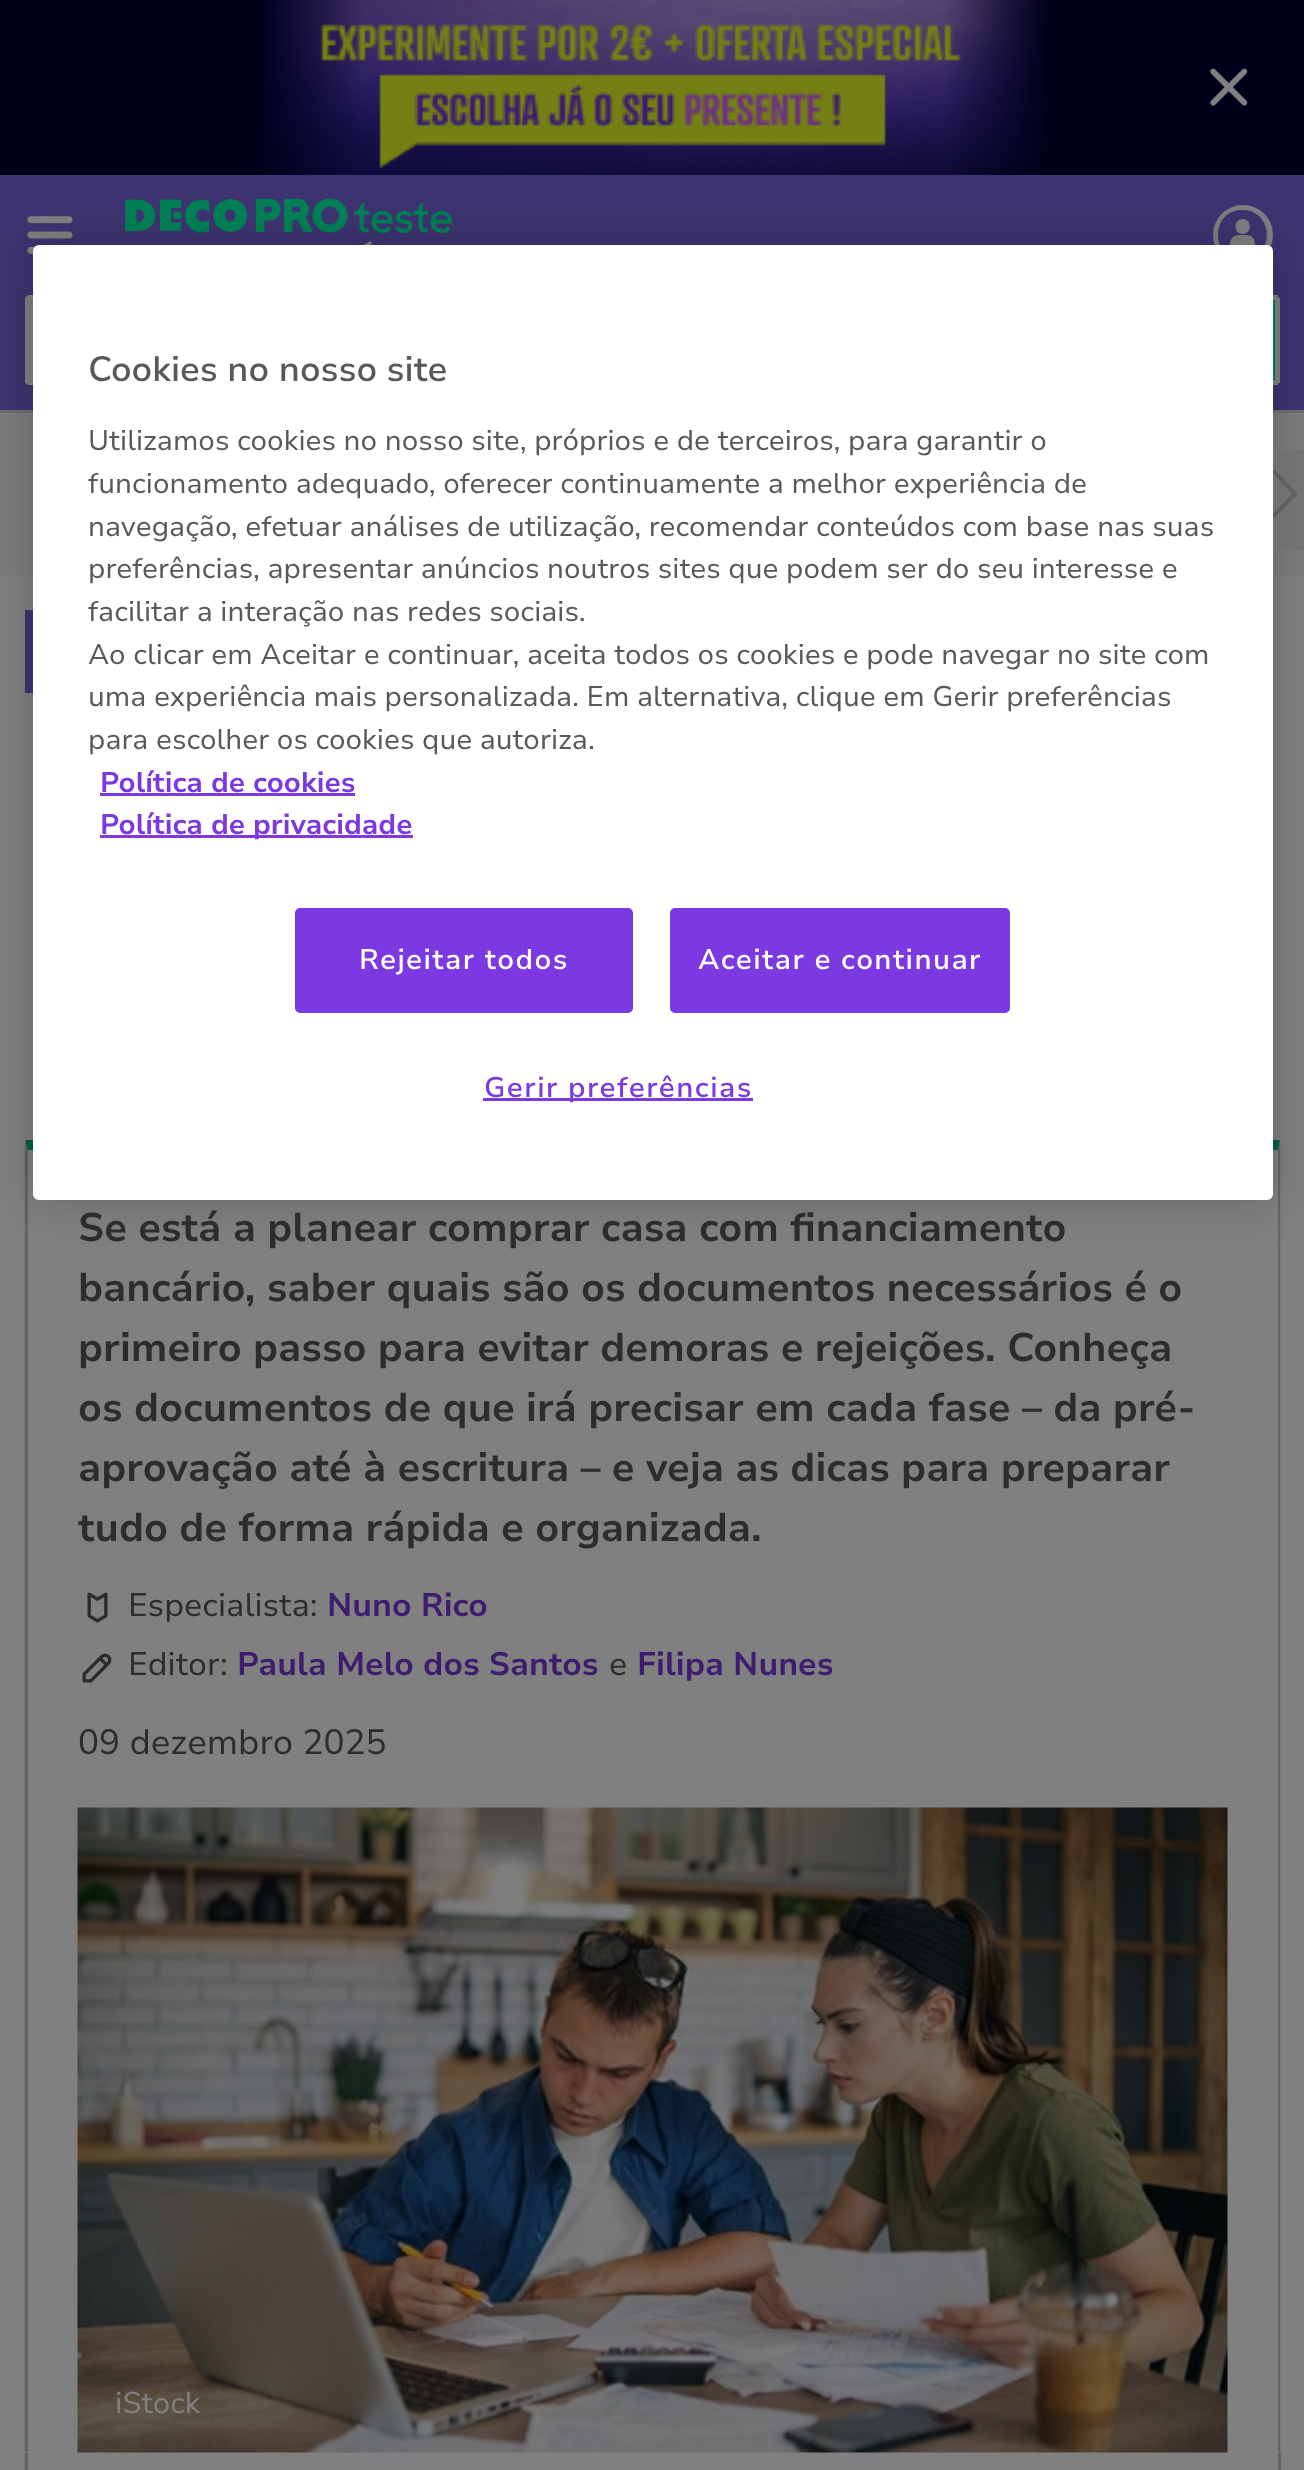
<svg xmlns="http://www.w3.org/2000/svg" width="1304" height="2470">
	<defs>
		<linearGradient id="g1" gradientUnits="userSpaceOnUse" x1="1248" y1="500" x2="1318" y2="500"><stop offset="0.3" stop-color="#727373" stop-opacity="0" /><stop offset="1" stop-color="#727373" /></linearGradient>
	</defs>
	<rect width="100%" height="100%" fill="#808080" />
	<rect x="0" y="0" width="1304" height="175" fill="#00001B" />
	<image x="262" y="0" width="785" height="175" href="assets/img1.png" />
	<image x="1210" y="68" width="38" height="38" href="assets/img2.png" />
	<rect x="0" y="175" width="1304" height="235" fill="#3E3471" />
	<rect x="0" y="410" width="1304" height="3" fill="#6F6F6F" />
	<image x="27" y="216" width="46" height="38" href="assets/img3.png" />
	<image x="125" y="198" width="327" height="47" href="assets/img4.png" />
	<circle cx="1243" cy="235" r="27.5" fill="none" stroke="#808080" stroke-width="5" />
	<circle cx="1243" cy="235" r="25" fill="#808080" />
	<path d="M1242 210C1210 210 1210 260 1242 260C1275 260 1275 210 1242 210ZM1243 219C1252 219 1252 234 1243 234C1233 234 1233 219 1243 219ZM1255 246C1248 253 1237 253 1230 246C1230 237 1233 235 1243 235C1252 235 1255 237 1255 246Z" fill="#3E3471" />
	<path d="M30 295H1050V385H30C27 385 25 383 25 380V300C25 297 27 295 30 295Z" fill="#808080" />
	<rect x="28" y="295" width="5" height="1" fill="#808080" />
	<rect x="28" y="384" width="5" height="1" fill="#808080" />
	<rect x="25" y="298" width="1" height="85" fill="#808080" />
	<path d="M1050 295H1275C1278 295 1280 297 1280 300V380C1280 383 1278 385 1275 385H1050Z" fill="#008056" />
	<rect x="1273" y="295" width="5" height="5" fill="#808080" />
	<rect x="1275" y="298" width="5" height="85" fill="#808080" />
	<rect x="1273" y="380" width="5" height="5" fill="#808080" />
	<rect x="0" y="413" width="1304" height="162" fill="#7D7C7C" />
	<rect x="1279" y="450" width="25" height="100" fill="url(#g1)" />
	<path d="M1273 473C1271 472 1273 470 1275 470L1293 489C1294 490 1299 492 1297 495L1275 517C1273 518 1272 515 1273 514L1292 494Z" fill="#676767" />
	<rect x="25" y="610" width="8" height="83" fill="#3E3471" />
	<rect x="25" y="1145" width="1255" height="1313" fill="#000000" fill-opacity="0.15" filter="blur(1px)" />
	<rect x="25" y="1144" width="1255" height="1309" fill="#808080" />
	<path d="M25 1140H1280L1278 1150H28Z" fill="#006041" />
	<path d="M1280 1140V2452H1278V1150Z" fill="#646465" />
	<path d="M25 2452V1140L28 1150V2452Z" fill="#646465" />
	<rect x="33" y="245" width="1240" height="955" rx="6" fill="#000000" fill-opacity="0.2" filter="blur(22.5px)" />
	<rect x="33" y="245" width="1240" height="955" rx="6" fill="#FFFFFF" />
	<text x="88" y="381" font-family="Nunito Sans" font-size="35" font-weight="600" fill="#58595B">Cookies no nosso site</text>
	<g font-family="Nunito Sans" font-size="28.45" fill="#58595B">
		<text x="88" y="450">Utilizamos cookies no nosso site, próprios e de terceiros, para garantir o</text>
		<text x="88" y="493">funcionamento adequado, oferecer continuamente a melhor experiência de</text>
		<text x="88" y="536">navegação, efetuar análises de utilização, recomendar conteúdos com base nas suas</text>
		<text x="88" y="578">preferências, apresentar anúncios noutros sites que podem ser do seu interesse e</text>
		<text x="88" y="621">facilitar a interação nas redes sociais.</text>
		<text x="88" y="664">Ao clicar em Aceitar e continuar, aceita todos os cookies e pode navegar no site com</text>
		<text x="88" y="706">uma experiência mais personalizada. Em alternativa, clique em Gerir preferências</text>
		<text x="88" y="749">para escolher os cookies que autoriza.</text>
	</g>
	<text x="100" y="792" font-family="Nunito Sans" font-size="28.45" font-weight="700" fill="#7C39E1">Política de cookies</text>
	<rect x="100" y="793" width="255" height="3" fill="#7C39E1" />
	<rect x="100" y="835" width="313" height="3" fill="#7C39E1" />
	<text x="100" y="834" font-family="Nunito Sans" font-size="28.45" font-weight="700" fill="#7C39E1">Política de privacidade</text>
	<rect x="296.5" y="909.5" width="335" height="102" rx="3.5" fill="#7C39E1" stroke="#7C39E1" stroke-width="3" />
	<text x="359" y="969" font-family="Nunito Sans" font-size="28.45" font-weight="600" letter-spacing="1.4" fill="#FFFFFF">Rejeitar todos</text>
	<rect x="671.5" y="909.5" width="337" height="102" rx="3.5" fill="#7C39E1" stroke="#7C39E1" stroke-width="3" />
	<text x="698" y="969" font-family="Nunito Sans" font-size="28.45" font-weight="600" letter-spacing="1.4" fill="#FFFFFF">Aceitar e continuar</text>
	<rect x="483" y="1098" width="270" height="3" fill="#7C39E1" />
	<text x="484" y="1097" font-family="Nunito Sans" font-size="28.45" font-weight="600" letter-spacing="1.4" fill="#7C39E1">Gerir preferências</text>
	<g font-family="Nunito Sans" font-size="40" font-weight="700" fill="#2C2D2E">
		<text x="78" y="1241">Se está a planear comprar casa com financiamento</text>
		<text x="78" y="1301">bancário, saber quais são os documentos necessários é o</text>
		<text x="78" y="1361">primeiro passo para evitar demoras e rejeições. Conheça</text>
		<text x="78" y="1421">os documentos de que irá precisar em cada fase – da pré-</text>
		<text x="78" y="1481">aprovação até à escritura – e veja as dicas para preparar</text>
		<text x="78" y="1541">tudo de forma rápida e organizada.</text>
	</g>
	<image x="87" y="1592" width="21" height="31" href="assets/img5.png" />
	<text x="128" y="1616" font-family="Nunito Sans" font-size="32.5" fill="#2C2D2E">Especialista:</text>
	<text x="327" y="1616" font-family="Nunito Sans" font-size="32.5" font-weight="700" fill="#3E1D71">Nuno Rico</text>
	<image x="82" y="1653" width="30" height="30" href="assets/img6.png" />
	<text x="128" y="1675" font-family="Nunito Sans" font-size="32.5" fill="#2C2D2E">Editor:</text>
	<text x="237" y="1675" font-family="Nunito Sans" font-size="32.5" font-weight="700" fill="#3E1D71">Paula Melo dos Santos</text>
	<text x="609" y="1675" font-family="Nunito Sans" font-size="32.5" fill="#2C2D2E">e</text>
	<text x="637" y="1675" font-family="Nunito Sans" font-size="32.5" font-weight="700" fill="#3E1D71">Filipa Nunes</text>
	<text x="78" y="1754" font-family="Nunito Sans" font-size="35" fill="#2C2D2E">09 dezembro 2025</text>
	<image x="77" y="1807" width="1151" height="646" href="assets/img7.png" />
	<text x="115" y="2413" font-family="Nunito Sans" font-size="30" fill="#808080">iStock</text>
	<rect x="25" y="2458" width="1255" height="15" fill="#000000" fill-opacity="0.15" filter="blur(1px)" />
	<rect x="28" y="2453" width="1250" height="17" fill="#808080" />
	<rect x="1278" y="2453" width="3" height="17" fill="#646465" />
	<rect x="25" y="2453" width="3" height="17" fill="#646465" />
</svg>
